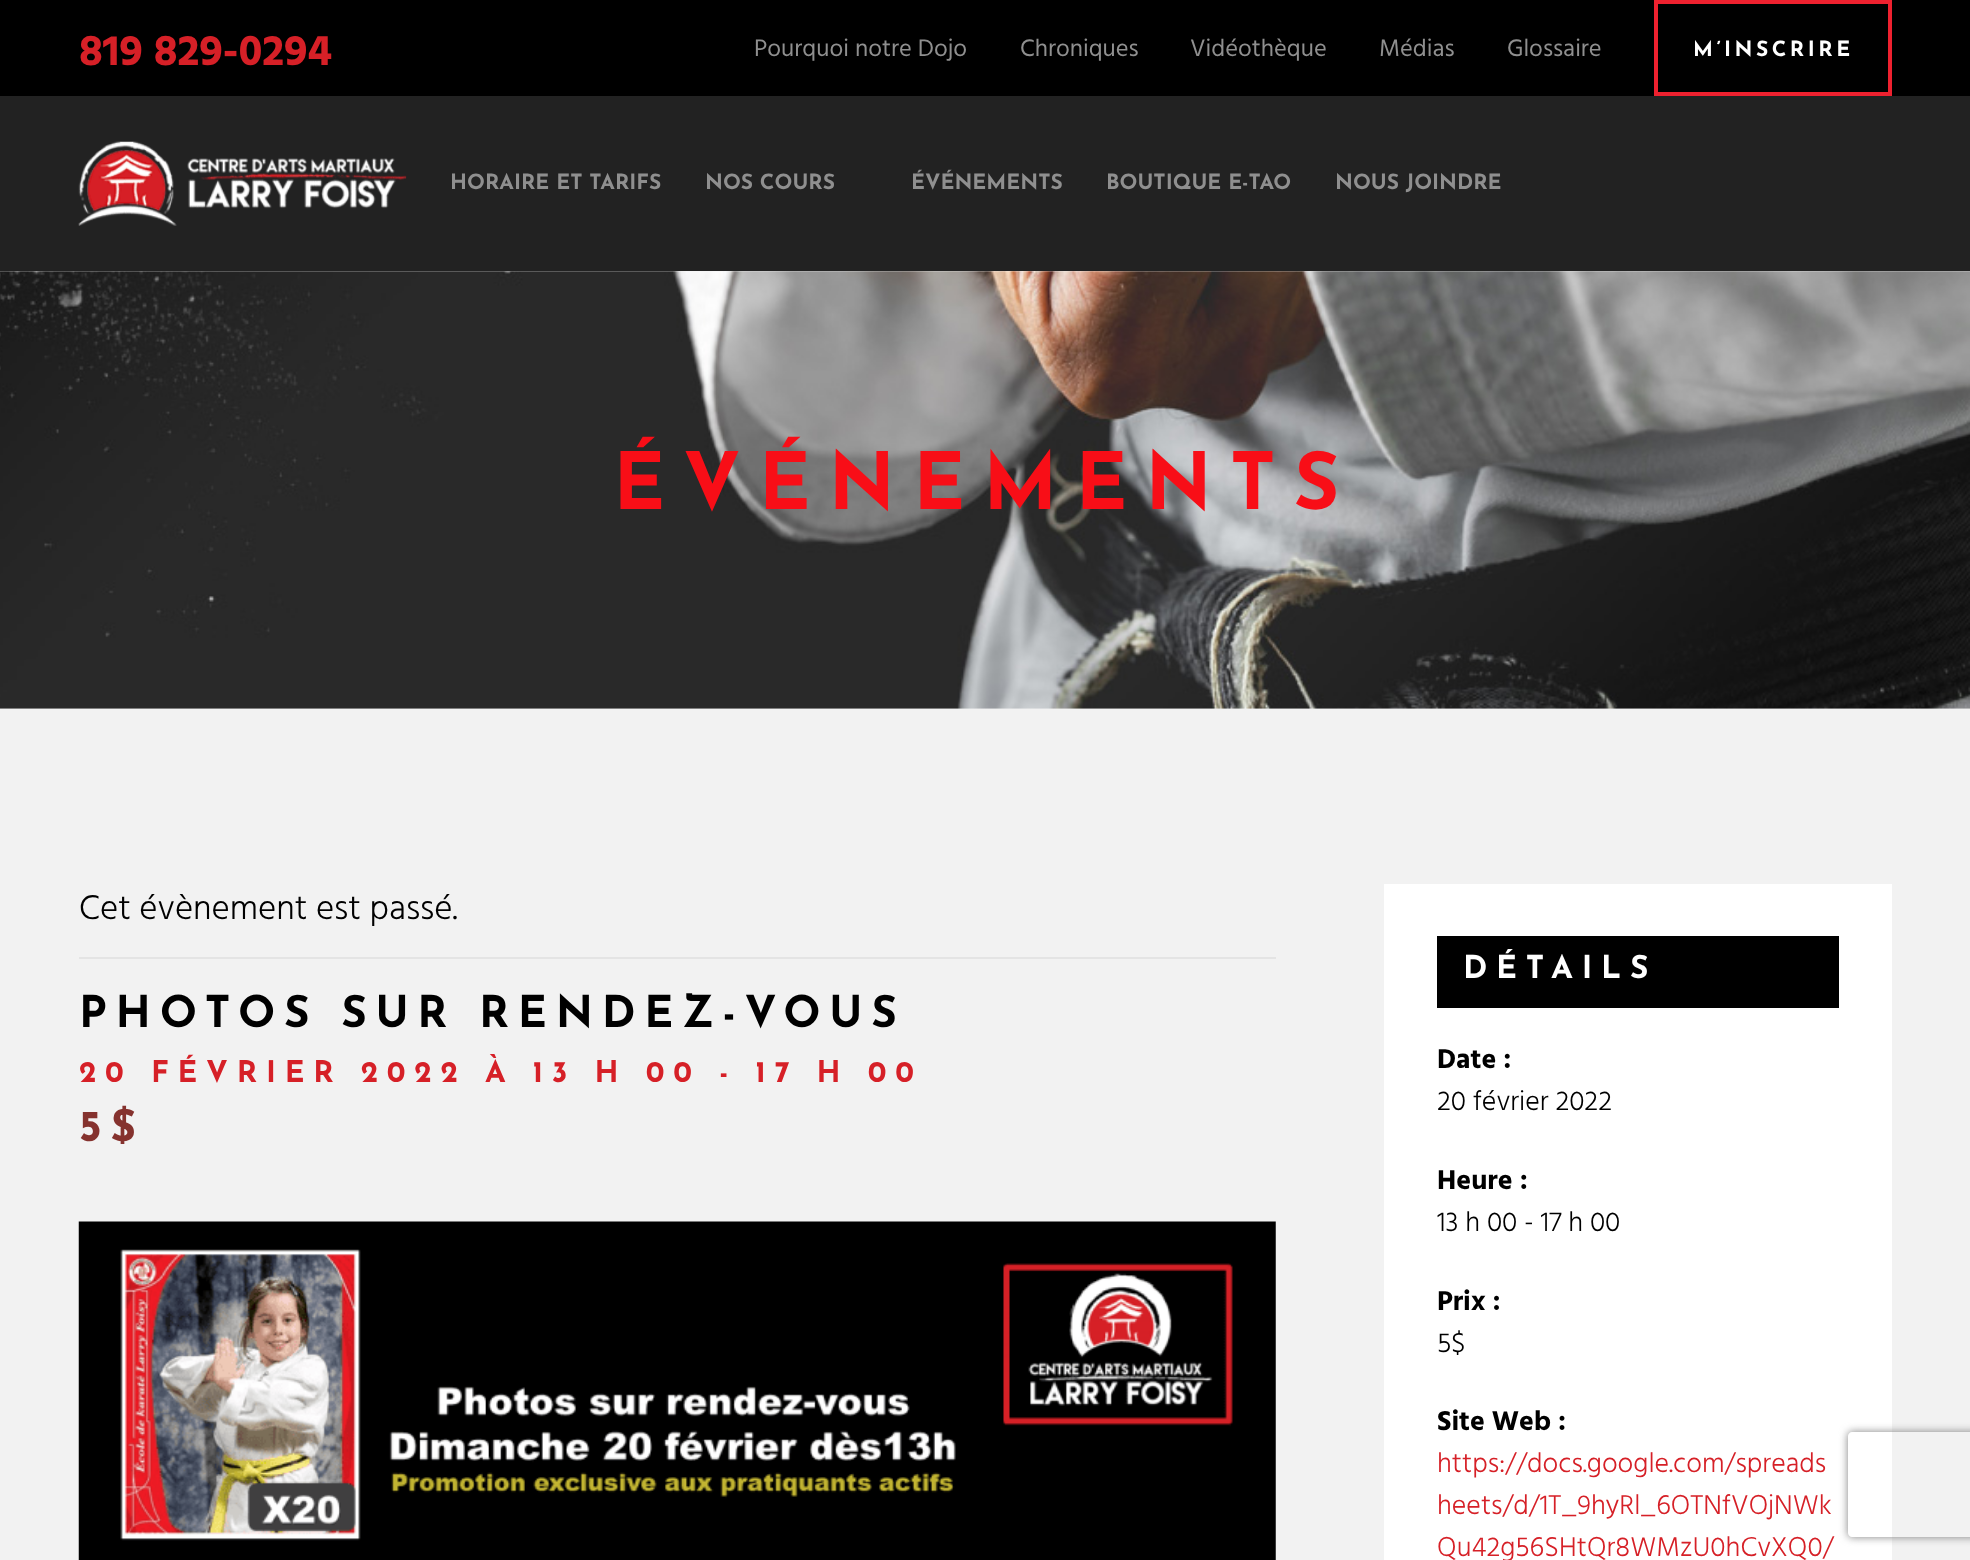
<svg xmlns="http://www.w3.org/2000/svg" width="1970" height="1560">
	<defs>
		<clipPath id="clip1"><path d="M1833 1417H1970V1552H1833ZM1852 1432H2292C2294 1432 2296 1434 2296 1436V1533C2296 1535 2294 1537 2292 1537H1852C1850 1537 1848 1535 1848 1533V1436C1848 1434 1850 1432 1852 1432Z" clip-rule="evenodd" /></clipPath>
	</defs>
	<rect width="100%" height="100%" fill="#F2F2F2" />
	<rect x="0" y="0" width="1970" height="96" fill="#000000" />
	<text x="79" y="65" font-family="Hind" font-size="43.75" font-weight="700" fill="#D62027">819 829-0294</text>
	<g font-family="Hind" font-size="24.5" fill="#8F8F8F">
		<text x="754" y="56">Pourquoi notre Dojo</text>
		<text x="1020" y="56">Chroniques</text>
		<text x="1190" y="56">Vidéothèque</text>
		<text x="1379" y="56">Médias</text>
		<text x="1507" y="56">Glossaire</text>
	</g>
	<rect x="1656" y="2" width="234" height="92" fill="none" stroke="#EE212F" stroke-width="4" />
	<text x="1693" y="56" font-family="Josefin Sans" font-size="21" font-weight="100" letter-spacing="3.5" fill="#FFFFFF">M’INSCRIRE</text>
	<rect x="0" y="96" width="1970" height="175" fill="#222222" />
	<image x="78" y="141" width="329" height="85" href="assets/img1.png" />
	<g font-family="Josefin Sans" font-size="21" font-weight="100" fill="#8F8F8F">
		<text x="450" y="189">HORAIRE ET TARIFS</text>
		<text x="705" y="189">NOS COURS</text>
		<text x="911" y="189">ÉVÉNEMENTS</text>
		<text x="1106" y="189">BOUTIQUE E-TAO</text>
		<text x="1335" y="189">NOUS JOINDRE</text>
	</g>
	<image x="0" y="271" width="1970" height="438" href="assets/img2.png" />
	<text x="613" y="509" font-family="Josefin Sans" font-size="78.75" font-weight="100" letter-spacing="17.5" fill="#F80E17">ÉVÉNEMENTS</text>
	<rect x="0" y="708" width="1970" height="1" fill="#F3F3F3" fill-opacity="0.25" />
	<rect x="79" y="957" width="1197" height="2" fill="#E4E4E4" />
	<text x="79" y="919" font-family="Hind" font-size="35" font-weight="300" fill="#000000">Cet évènement est passé.</text>
	<text x="79" y="1027" font-family="Josefin Sans" font-size="43.75" font-weight="100" letter-spacing="8.75" fill="#000000">PHOTOS SUR RENDEZ-VOUS</text>
	<text x="79" y="1082" font-family="Josefin Sans" font-size="29.75" font-weight="100" letter-spacing="8.75" fill="#D62027">20 FÉVRIER 2022 À 13 H 00 - 17 H 00</text>
	<text x="79" y="1141" font-family="Josefin Sans" font-size="43.75" font-weight="100" letter-spacing="8.75" fill="#85322E">5$</text>
	<image x="78" y="1221" width="1198" height="339" href="assets/img3.png" />
	<rect x="1384" y="884" width="508" height="676" fill="#FFFFFF" />
	<rect x="1437" y="936" width="402" height="72" fill="#000000" />
	<text x="1463" y="978" font-family="Josefin Sans" font-size="31.5" font-weight="100" letter-spacing="8.75" fill="#FFFFFF">DÉTAILS</text>
	<text x="1437" y="1068" font-family="Hind" font-size="28" font-weight="700" fill="#000000">Date :</text>
	<text x="1437" y="1110" font-family="Hind" font-size="28" font-weight="300" fill="#000000">20 février 2022</text>
	<text x="1437" y="1189" font-family="Hind" font-size="28" font-weight="700" fill="#000000">Heure :</text>
	<text x="1437" y="1231" font-family="Hind" font-size="28" font-weight="300" fill="#000000">13 h 00 - 17 h 00</text>
	<text x="1437" y="1310" font-family="Hind" font-size="28" font-weight="700" fill="#000000">Prix :</text>
	<text x="1437" y="1352" font-family="Hind" font-size="28" font-weight="300" fill="#000000">5$</text>
	<text x="1437" y="1430" font-family="Hind" font-size="28" font-weight="700" fill="#000000">Site Web :</text>
	<g font-family="Hind" font-size="28" font-weight="300" fill="#D62027">
		<text x="1437" y="1472">https://docs.google.com/spreads</text>
		<text x="1437" y="1514">heets/d/1T_9hyRl_6OTNfVOjNWk</text>
		<text x="1437" y="1556">Qu42g56SHtQr8WMzU0hCvXQ0/</text>
	</g>
	<g clip-path="url(#clip1)">
		<rect x="1848" y="1432" width="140" height="105" rx="4" fill="#808080" filter="blur(4.5px)" />
	</g>
</svg>
